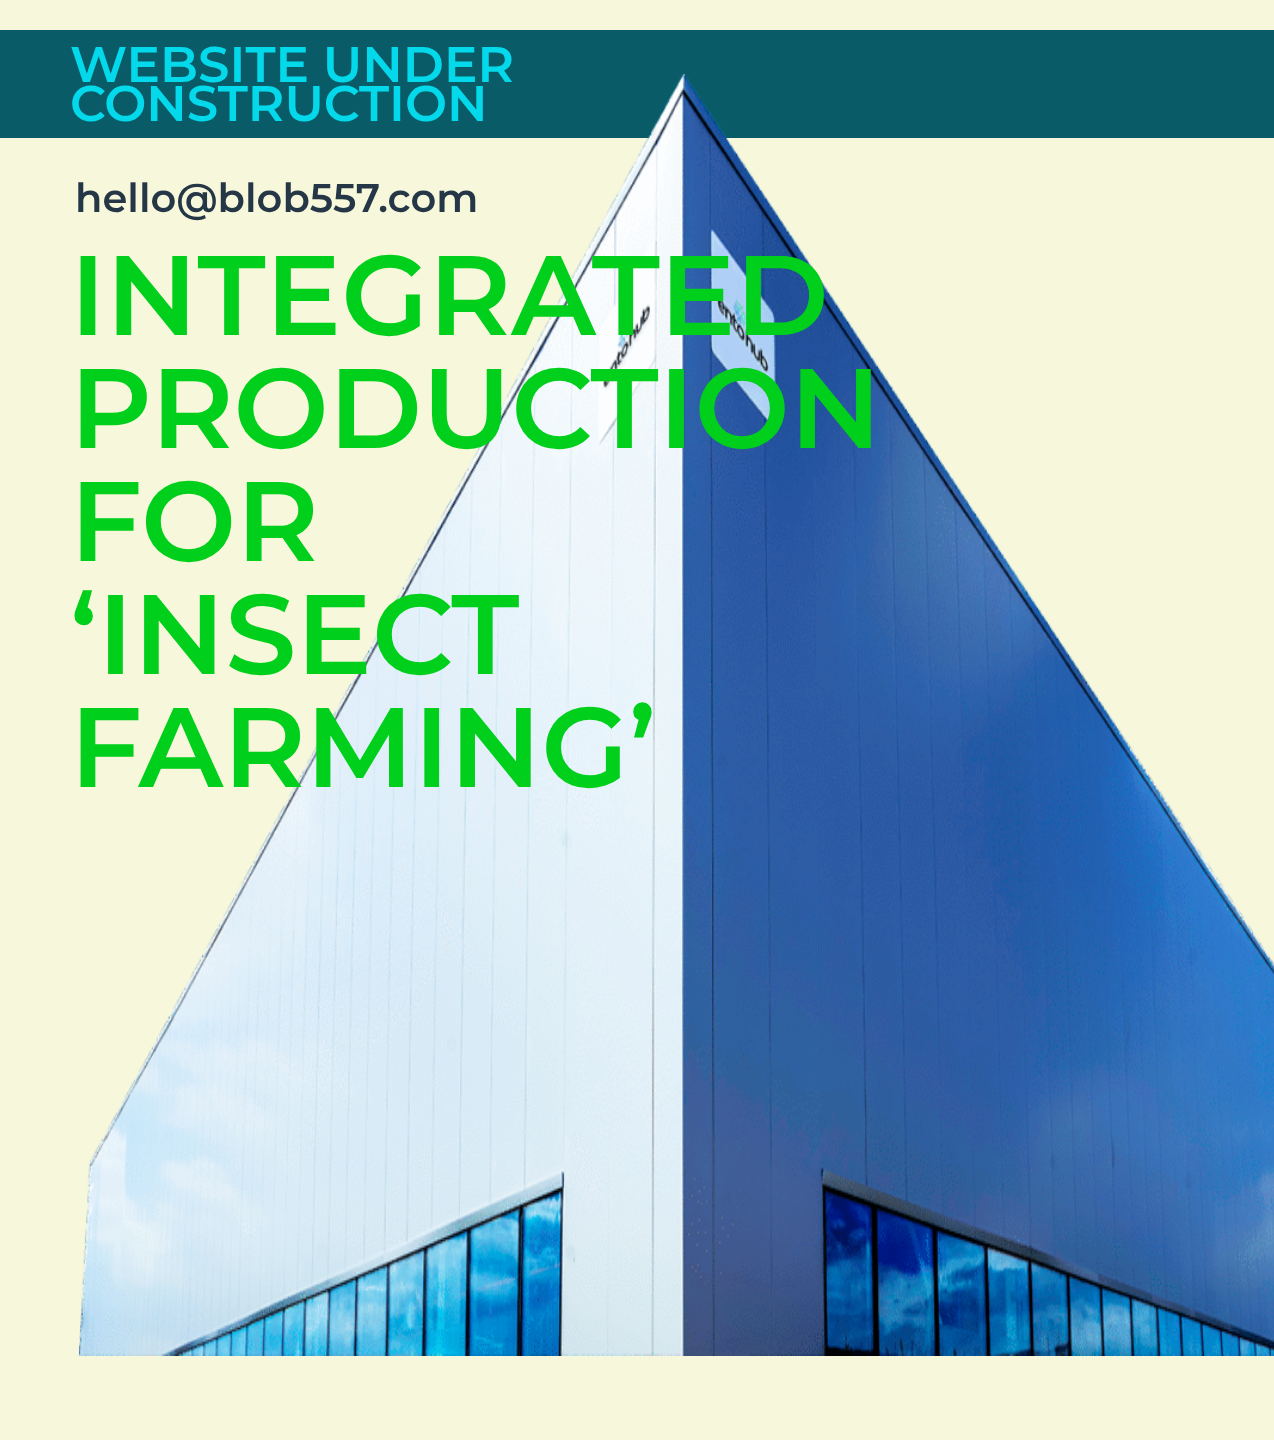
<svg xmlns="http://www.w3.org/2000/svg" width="1274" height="1440">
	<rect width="100%" height="100%" fill="#F7F7DB" />
	<rect x="0" y="30" width="1274" height="108" fill="#095C67" />
	<g font-family="Montserrat" font-size="50" font-weight="600" fill="#03D9EA">
		<text x="70" y="82">WEBSITE UNDER</text>
		<text x="70" y="121">CONSTRUCTION</text>
	</g>
	<text x="75" y="212" font-family="Montserrat" font-size="40" font-weight="600" fill="#253746">hello@blob557.com</text>
	<image x="79" y="74" width="1195" height="1282" href="assets/img1.png" />
	<g font-family="Montserrat" font-size="113" font-weight="600" fill="#00D01B">
		<text x="70" y="335">INTEGRATED</text>
		<text x="70" y="448">PRODUCTION</text>
		<text x="70" y="561">FOR</text>
		<text x="70" y="674">‘INSECT</text>
		<text x="70" y="787">FARMING’</text>
	</g>
</svg>
